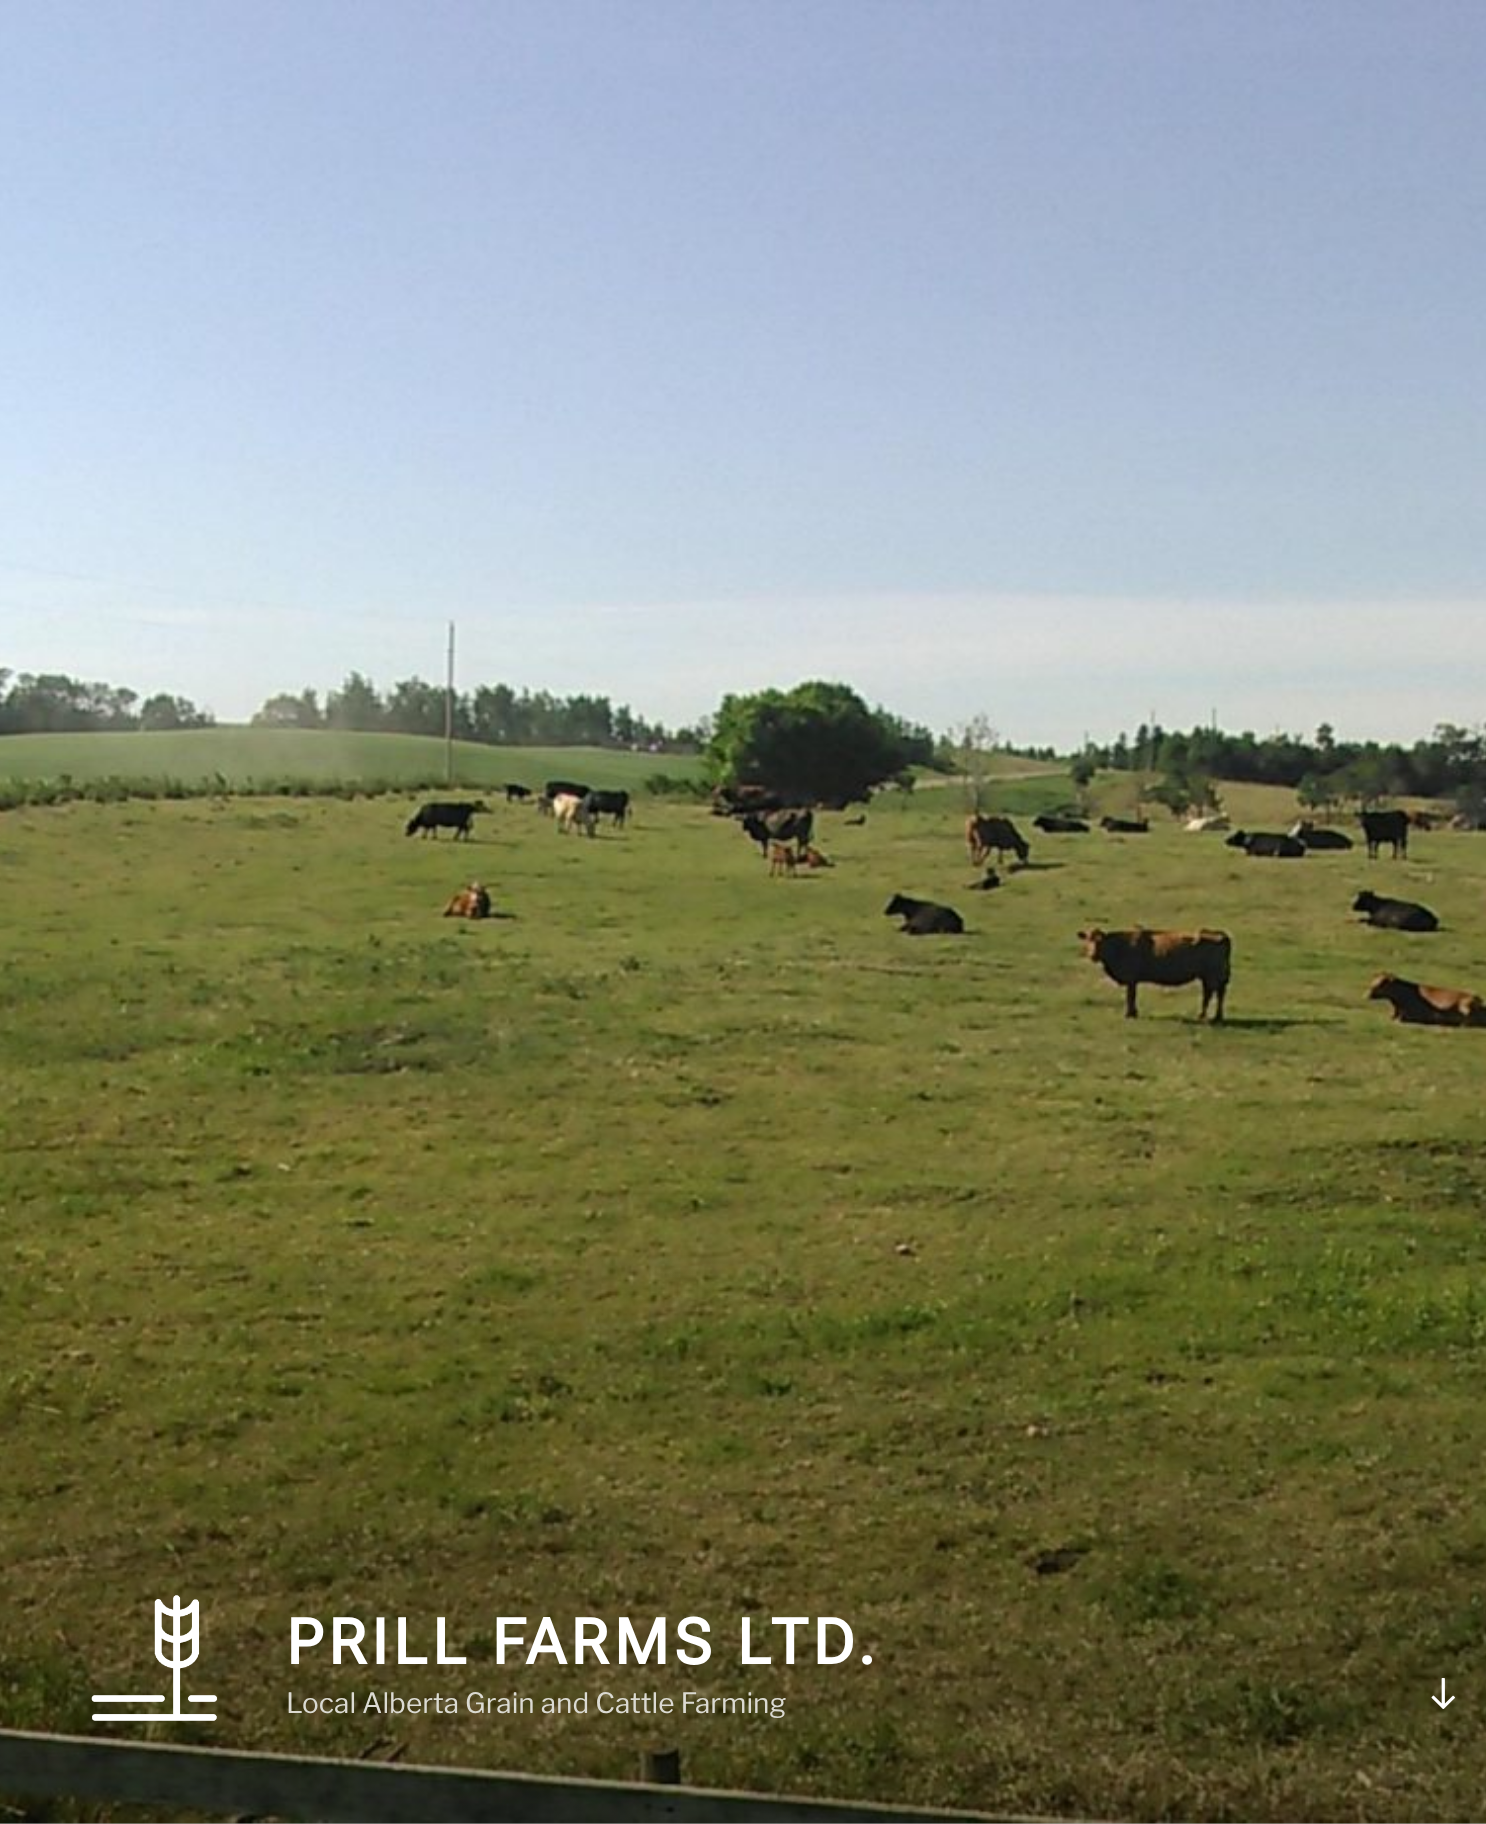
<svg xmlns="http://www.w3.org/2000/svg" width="1486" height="1824">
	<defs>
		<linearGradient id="g1" gradientUnits="userSpaceOnUse" x1="744" y1="1223" x2="744" y2="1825"><stop offset="0" stop-color="#000000" stop-opacity="0" /><stop offset="0.75" stop-color="#000000" stop-opacity="0.3" /><stop offset="1" stop-color="#000000" stop-opacity="0.3" /></linearGradient>
	</defs>
	<rect width="100%" height="100%" fill="#FAFAFA" />
	<image x="0" y="0" width="1486" height="1824" href="assets/img1.png" />
	<rect x="0" y="1255" width="1486" height="569" fill="url(#g1)" />
	<image x="91" y="1595" width="127" height="126" href="assets/img2.png" />
	<text x="286" y="1664" font-family="Roboto Flex" font-size="63" font-weight="700" letter-spacing="5" fill="#FFFFFF">PRILL FARMS LTD.</text>
	<text x="286" y="1713" font-family="Libre Franklin" font-size="28" font-weight="100" fill="#DBDAD2">Local Alberta Grain and Cattle Farming</text>
	<image x="1431" y="1678" width="24" height="31" href="assets/img3.png" />
</svg>
